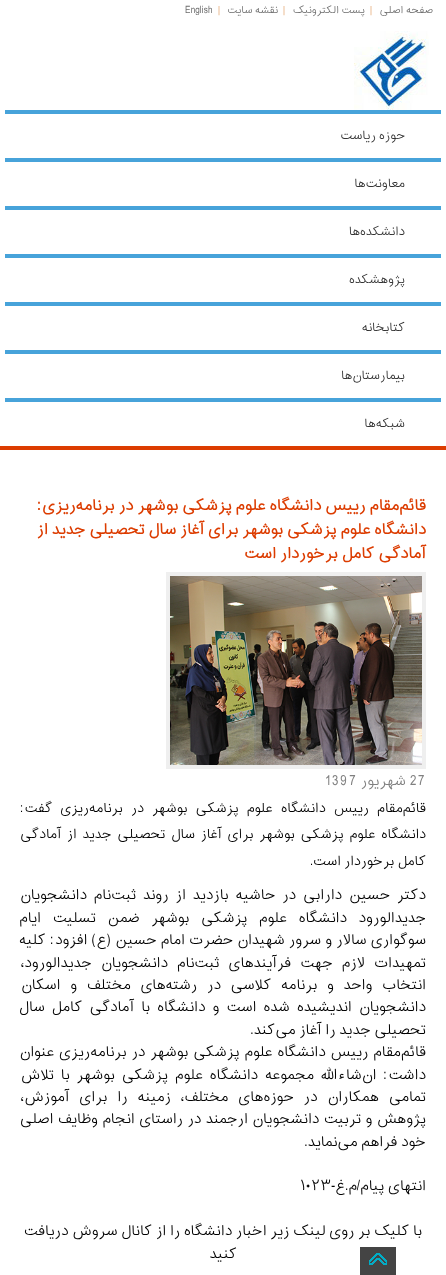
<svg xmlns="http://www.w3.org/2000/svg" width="446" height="1275">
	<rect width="100%" height="100%" fill="#FFFFFF" />
	<rect x="0" y="446" width="446" height="4" fill="#DC3C00" />
	<text x="433" y="13" font-family="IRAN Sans" font-size="10" font-weight="300" direction="rtl" fill="#6C6C6C">صفحه اصلی</text>
	<text x="370" y="13" font-family="Liberation Serif" font-size="10" fill="#DB873D">|</text>
	<text x="365" y="13" font-family="IRAN Sans" font-size="10" font-weight="300" direction="rtl" fill="#6C6C6C">پست الکترونیک</text>
	<text x="283" y="13" font-family="Liberation Serif" font-size="10" fill="#DB873D">|</text>
	<text x="278" y="13" font-family="IRAN Sans" font-size="10" font-weight="300" direction="rtl" fill="#6C6C6C">نقشه سایت</text>
	<text x="218" y="13" font-family="Liberation Serif" font-size="10" fill="#DB873D">|</text>
	<text x="185" y="13" font-family="IRAN Sans" font-size="10" font-weight="300" fill="#6C6C6C">English</text>
	<rect x="5" y="110" width="436" height="4" fill="#47A3DA" />
	<image x="354" y="31" width="75" height="79" href="assets/img1.png" />
	<rect x="5" y="158" width="436" height="4" fill="#47A3DA" />
	<text x="405" y="139" font-family="IRAN Sans" font-size="12" font-weight="300" direction="rtl" fill="#333333">حوزه ریاست</text>
	<rect x="5" y="206" width="436" height="4" fill="#47A3DA" />
	<text x="405" y="187" font-family="IRAN Sans" font-size="12" font-weight="300" direction="rtl" fill="#333333">معاونت‌ها</text>
	<rect x="5" y="254" width="436" height="4" fill="#47A3DA" />
	<text x="405" y="235" font-family="IRAN Sans" font-size="12" font-weight="300" direction="rtl" fill="#333333">دانشکده‌ها</text>
	<rect x="5" y="302" width="436" height="4" fill="#47A3DA" />
	<text x="405" y="283" font-family="IRAN Sans" font-size="12" font-weight="300" direction="rtl" fill="#333333">پژوهشکده</text>
	<rect x="5" y="350" width="436" height="4" fill="#47A3DA" />
	<text x="405" y="331" font-family="IRAN Sans" font-size="12" font-weight="300" direction="rtl" fill="#333333">کتابخانه</text>
	<rect x="5" y="398" width="436" height="4" fill="#47A3DA" />
	<g font-family="IRAN Sans" font-size="12" font-weight="300" direction="rtl" fill="#333333">
		<text x="405" y="379">بیمارستان‌ها</text>
		<text x="405" y="427">شبکه‌ها</text>
	</g>
	<g font-family="IRAN Sans" font-size="15" font-weight="700" direction="rtl" fill="#DC3C00">
		<text x="426" y="510">قائم‌مقام رییس دانشگاه علوم پزشکی بوشهر در برنامه‌ریزی:</text>
		<text x="426" y="534">دانشگاه علوم پزشکی بوشهر برای آغاز سال تحصیلی جدید از</text>
		<text x="426" y="558">آمادگی کامل برخوردار است</text>
	</g>
	<rect x="168" y="574" width="256" height="193" fill="none" stroke="#EFEFEF" stroke-width="4" />
	<image x="170" y="576" width="252" height="189" href="assets/img2.png" />
	<text x="410" y="785" font-family="IRAN Sans" font-size="14" font-weight="300" fill="#808080">27</text>
	<text x="406" y="785" font-family="IRAN Sans" font-size="14" font-weight="300" direction="rtl" fill="#808080">شهريور</text>
	<text x="325" y="785" font-family="IRAN Sans" font-size="14" font-weight="300" fill="#808080">1397</text>
	<g font-family="IRAN Sans" font-size="13" font-weight="300" direction="rtl" fill="#000000">
		<text x="426" y="812" word-spacing="4.75">قائم‌مقام رییس دانشگاه علوم پزشکی بوشهر در برنامه‌ریزی گفت:</text>
		<text x="426" y="838" word-spacing="2.4">دانشگاه علوم پزشکی بوشهر برای آغاز سال تحصیلی جدید از آمادگی</text>
		<text x="426" y="865">کامل برخوردار است.</text>
	</g>
	<g font-family="IRAN Sans" font-size="14" font-weight="300" direction="rtl" fill="#000000">
		<text x="426" y="899" word-spacing="3.25">دکتر حسین دارابی در حاشیه بازدید از روند ثبت‌نام دانشجویان</text>
		<text x="426" y="922" word-spacing="8">جدیدالورود دانشگاه علوم پزشکی بوشهر ضمن تسلیت ایام</text>
		<text x="426" y="944" word-spacing="0.5">سوگواری سالار و سرور شهیدان حضرت امام حسین (ع) افزود: کلیه</text>
		<text x="426" y="967" word-spacing="5.5">تمهیدات لازم جهت فرآیندهای ثبت‌نام دانشجویان جدیدالورود،</text>
		<text x="426" y="989" word-spacing="6">انتخاب واحد و برنامه کلاسی در رشته‌های مختلف و اسکان</text>
		<text x="426" y="1011" word-spacing="3.5">دانشجویان اندیشیده شده است و دانشگاه با آمادگی کامل سال</text>
		<text x="426" y="1034">تحصیلی جدید را آغاز می‌کند.</text>
		<text x="426" y="1056" word-spacing="1.25">قائم‌مقام رییس دانشگاه علوم پزشکی بوشهر در برنامه‌ریزی عنوان</text>
		<text x="426" y="1079" word-spacing="3.25">داشت: ان‌شاءالله مجموعه دانشگاه علوم پزشکی بوشهر با تلاش</text>
		<text x="426" y="1101" word-spacing="6.25">تمامی همکاران در حوزه‌های مختلف، زمینه را برای آموزش،</text>
		<text x="426" y="1123" word-spacing="0.75">پژوهش و تربیت دانشجویان ارجمند در راستای انجام وظایف اصلی</text>
		<text x="426" y="1146">خود فراهم می‌نماید.</text>
		<text x="426" y="1190">انتهای پیام/م.غ-</text>
	</g>
	<text x="300" y="1190" font-family="IRAN Sans" font-size="14" font-weight="300" fill="#000000">۱۰۲۳</text>
	<g font-family="IRAN Sans" font-size="14" font-weight="300" direction="rtl" fill="#000000">
		<text x="422" y="1235">با کلیک بر روی لینک زیر اخبار دانشگاه را از کانال سروش دریافت</text>
		<text x="237" y="1258">کنید</text>
	</g>
	<rect x="360" y="1247" width="36" height="28" fill="#444444" />
	<image x="369" y="1253" width="18" height="12" href="assets/img3.png" />
</svg>
